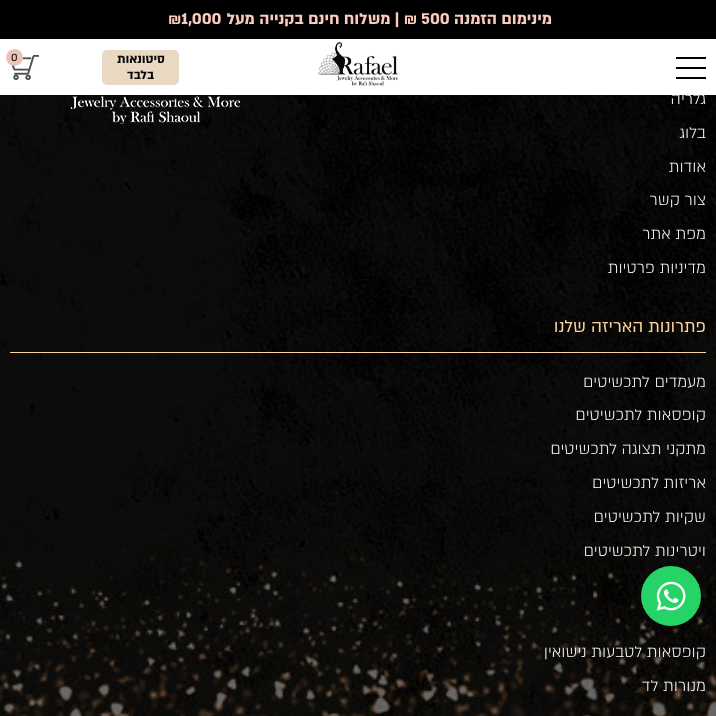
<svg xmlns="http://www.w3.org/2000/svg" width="716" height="716">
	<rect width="100%" height="100%" fill="#FFFFFF" />
	<rect x="0" y="0" width="716" height="39" fill="#000000" />
	<text x="552" y="24" font-family="'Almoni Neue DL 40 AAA'" font-size="18" font-weight="700" direction="rtl" fill="#FACABD">מינימום הזמנה</text>
	<text x="421" y="24" font-family="'Almoni Neue DL 40 AAA'" font-size="18" font-weight="700" fill="#FACABD">500</text>
	<text x="417" y="24" font-family="'Almoni Neue DL 40 AAA'" font-size="18" font-weight="700" direction="rtl" fill="#FACABD">₪ | משלוח חינם בקנייה מעל</text>
	<text x="168" y="24" font-family="'Almoni Neue DL 40 AAA'" font-size="18" font-weight="700" fill="#FACABD">₪1,000</text>
	<rect x="676" y="77" width="30" height="2" fill="#000000" />
	<rect x="676" y="67" width="30" height="2" fill="#000000" />
	<rect x="676" y="57" width="30" height="2" fill="#000000" />
	<image x="318" y="41" width="80" height="45" href="assets/img1.png" />
	<rect x="102" y="50" width="77" height="35" rx="5" fill="#E9D9C2" />
	<g font-family="'Almoni Neue DL 40 AAA'" font-size="14" font-weight="700" direction="rtl" fill="#080808">
		<text x="165" y="63">סיטונאות</text>
		<text x="154" y="79">בלבד</text>
	</g>
	<image x="11" y="55" width="28" height="25" href="assets/img2.png" />
	<circle cx="14.5" cy="57.5" r="8.5" fill="#EDC3B8" />
	<text x="11" y="61" font-family="'Almoni Neue DL 40 AAA'" font-size="12" fill="#000000">0</text>
	<image x="0" y="95" width="716" height="621" href="assets/img4.png" />
	<rect x="642" y="567" width="60" height="60" rx="30" fill="#000000" fill-opacity="0.3" filter="blur(2px)" />
	<circle cx="671" cy="596" r="30" fill="#25D366" />
	<image x="656" y="581" width="30" height="30" href="assets/img3.png" />
	<g font-family="'Almoni Neue DL 40 AAA'" font-size="18" font-weight="300" direction="rtl" fill="#FFFFFF">
		<text x="706" y="104">גלריה</text>
		<text x="706" y="138">בלוג</text>
		<text x="706" y="172">אודות</text>
		<text x="706" y="205">צור קשר</text>
		<text x="706" y="239">מפת אתר</text>
		<text x="706" y="273">מדיניות פרטיות</text>
	</g>
	<rect x="10" y="352" width="696" height="1" fill="#FBD49D" />
	<text x="706" y="332" font-family="'Almoni Neue DL 40 AAA'" font-size="19.25" direction="rtl" fill="#FBD49D">פתרונות האריזה שלנו</text>
	<g font-family="'Almoni Neue DL 40 AAA'" font-size="18" font-weight="300" direction="rtl" fill="#FFFFFF">
		<text x="706" y="387">מעמדים לתכשיטים</text>
		<text x="706" y="420">קופסאות לתכשיטים</text>
		<text x="706" y="454">מתקני תצוגה לתכשיטים</text>
		<text x="706" y="488">אריזות לתכשיטים</text>
		<text x="706" y="522">שקיות לתכשיטים</text>
		<text x="706" y="556">ויטרינות לתכשיטים</text>
		<text x="706" y="657">קופסאות לטבעות נישואין</text>
		<text x="706" y="691">מנורות לד</text>
	</g>
	<image x="70" y="96" width="170" height="28" href="assets/img5.png" />
</svg>
